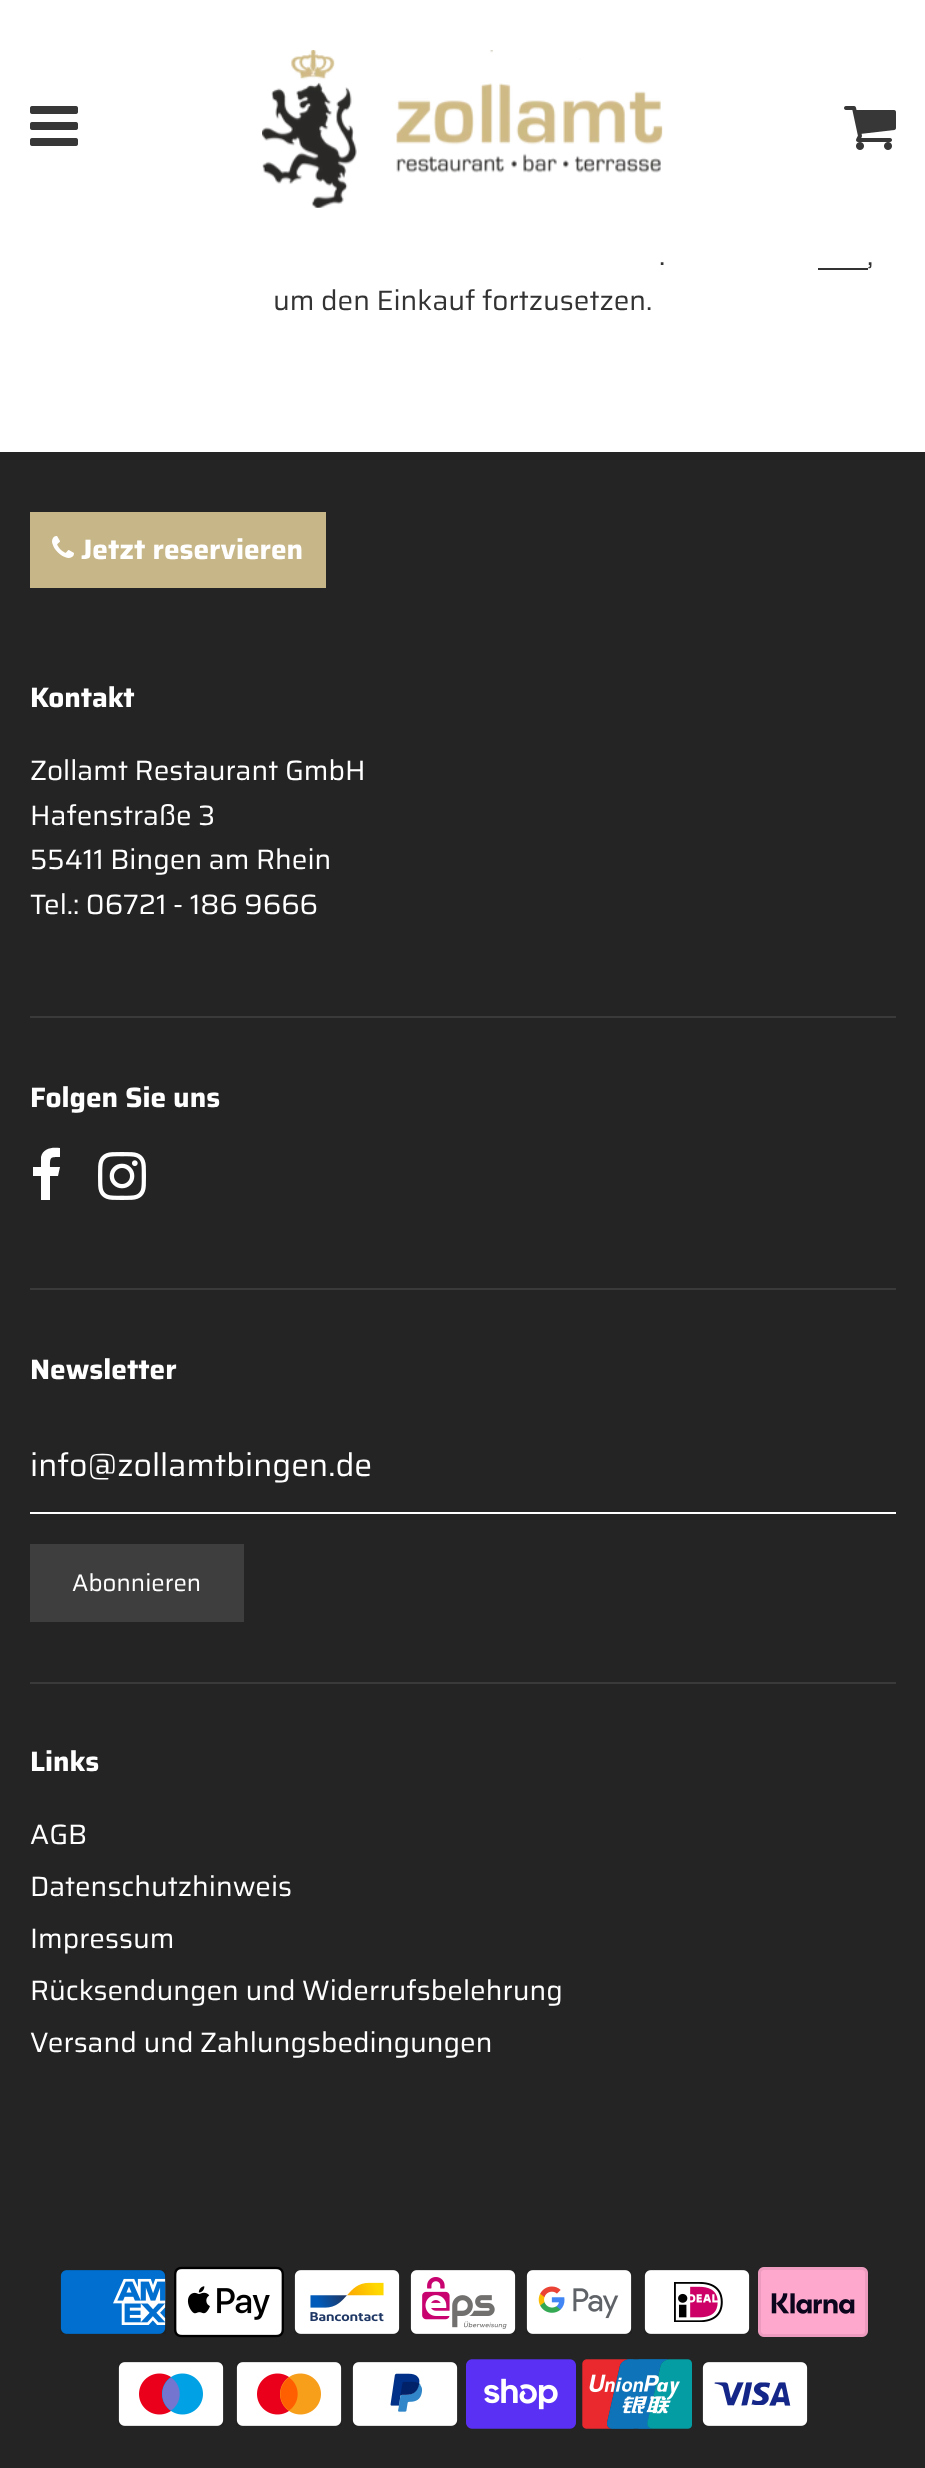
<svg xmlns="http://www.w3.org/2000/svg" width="925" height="2468">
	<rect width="100%" height="100%" fill="#FFFFFF" />
	<image x="30" y="106" width="48" height="40" href="assets/img1.png" />
	<image x="262" y="50" width="401" height="158" href="assets/img2.png" />
	<image x="844" y="106" width="52" height="44" href="assets/img3.png" />
	<text x="659" y="265" font-family="Saira" font-size="28" fill="#333333">.</text>
	<rect x="818" y="268" width="50" height="2" fill="#333333" />
	<g font-family="Saira" font-size="28" fill="#333333">
		<text x="867" y="265">,</text>
		<text x="273" y="310">um den Einkauf fortzusetzen.</text>
	</g>
	<rect x="0" y="452" width="925" height="2016" fill="#242424" />
	<rect x="30" y="512" width="296" height="76" fill="#C7B687" />
	<image x="52" y="536" width="22" height="22" href="assets/img4.png" />
	<g font-family="Saira" font-size="28" font-weight="700" fill="#FFFFFF">
		<text x="81" y="559">Jetzt reservieren</text>
		<text x="30" y="707">Kontakt</text>
	</g>
	<g font-family="Saira" font-size="28" fill="#FFFFFF">
		<text x="30" y="780">Zollamt Restaurant GmbH</text>
		<text x="30" y="825">Hafenstraße 3</text>
		<text x="30" y="869">55411 Bingen am Rhein</text>
		<text x="30" y="914">Tel.: 06721 - 186 9666</text>
	</g>
	<rect x="30" y="1016" width="866" height="2" fill="#3A3A3A" />
	<text x="30" y="1107" font-family="Saira" font-size="28" font-weight="700" fill="#FFFFFF">Folgen Sie uns</text>
	<path d="M60 1148V1157C50 1157 50 1157 50 1167H60L58 1176H50V1200H41V1176H33V1167H41V1157C43 1148 52 1147 60 1148Z" fill="#FFFFFF" />
	<image x="98" y="1152" width="48" height="48" href="assets/img5.png" />
	<rect x="30" y="1288" width="866" height="2" fill="#3A3A3A" />
	<text x="30" y="1379" font-family="Saira" font-size="28" font-weight="700" fill="#FFFFFF">Newsletter</text>
	<rect x="30" y="1512" width="866" height="2" fill="#FFFFFF" />
	<text x="30" y="1476" font-family="Saira" font-size="32" fill="#FFFFFF">info@zollamtbingen.de</text>
	<rect x="30" y="1544" width="214" height="78" fill="#3E3E3E" />
	<text x="72" y="1591" font-family="Saira" font-size="24" fill="#FFFFFF">Abonnieren</text>
	<rect x="30" y="1682" width="866" height="2" fill="#3A3A3A" />
	<text x="30" y="1771" font-family="Saira" font-size="28" font-weight="700" fill="#FFFFFF">Links</text>
	<g font-family="Saira" font-size="28" fill="#FFFFFF">
		<text x="30" y="1844">AGB</text>
		<text x="30" y="1896">Datenschutzhinweis</text>
		<text x="30" y="1948">Impressum</text>
		<text x="30" y="2000">Rücksendungen und Widerrufsbelehrung</text>
		<text x="30" y="2052">Versand und Zahlungsbedingungen</text>
	</g>
	<image x="60" y="2270" width="106" height="64" href="assets/img6.png" />
	<image x="174" y="2266" width="110" height="72" href="assets/img7.png" />
	<image x="294" y="2270" width="106" height="64" href="assets/img8.png" />
	<image x="410" y="2270" width="106" height="64" href="assets/img9.png" />
	<image x="526" y="2270" width="106" height="64" href="assets/img10.png" />
	<image x="644" y="2270" width="106" height="64" href="assets/img11.png" />
	<image x="758" y="2267" width="110" height="70" href="assets/img12.png" />
	<image x="118" y="2362" width="106" height="64" href="assets/img13.png" />
	<image x="236" y="2362" width="106" height="64" href="assets/img14.png" />
	<image x="352" y="2362" width="106" height="64" href="assets/img15.png" />
	<image x="466" y="2359" width="110" height="70" href="assets/img16.png" />
	<image x="582" y="2359" width="110" height="70" href="assets/img17.png" />
	<image x="702" y="2362" width="106" height="64" href="assets/img18.png" />
</svg>
